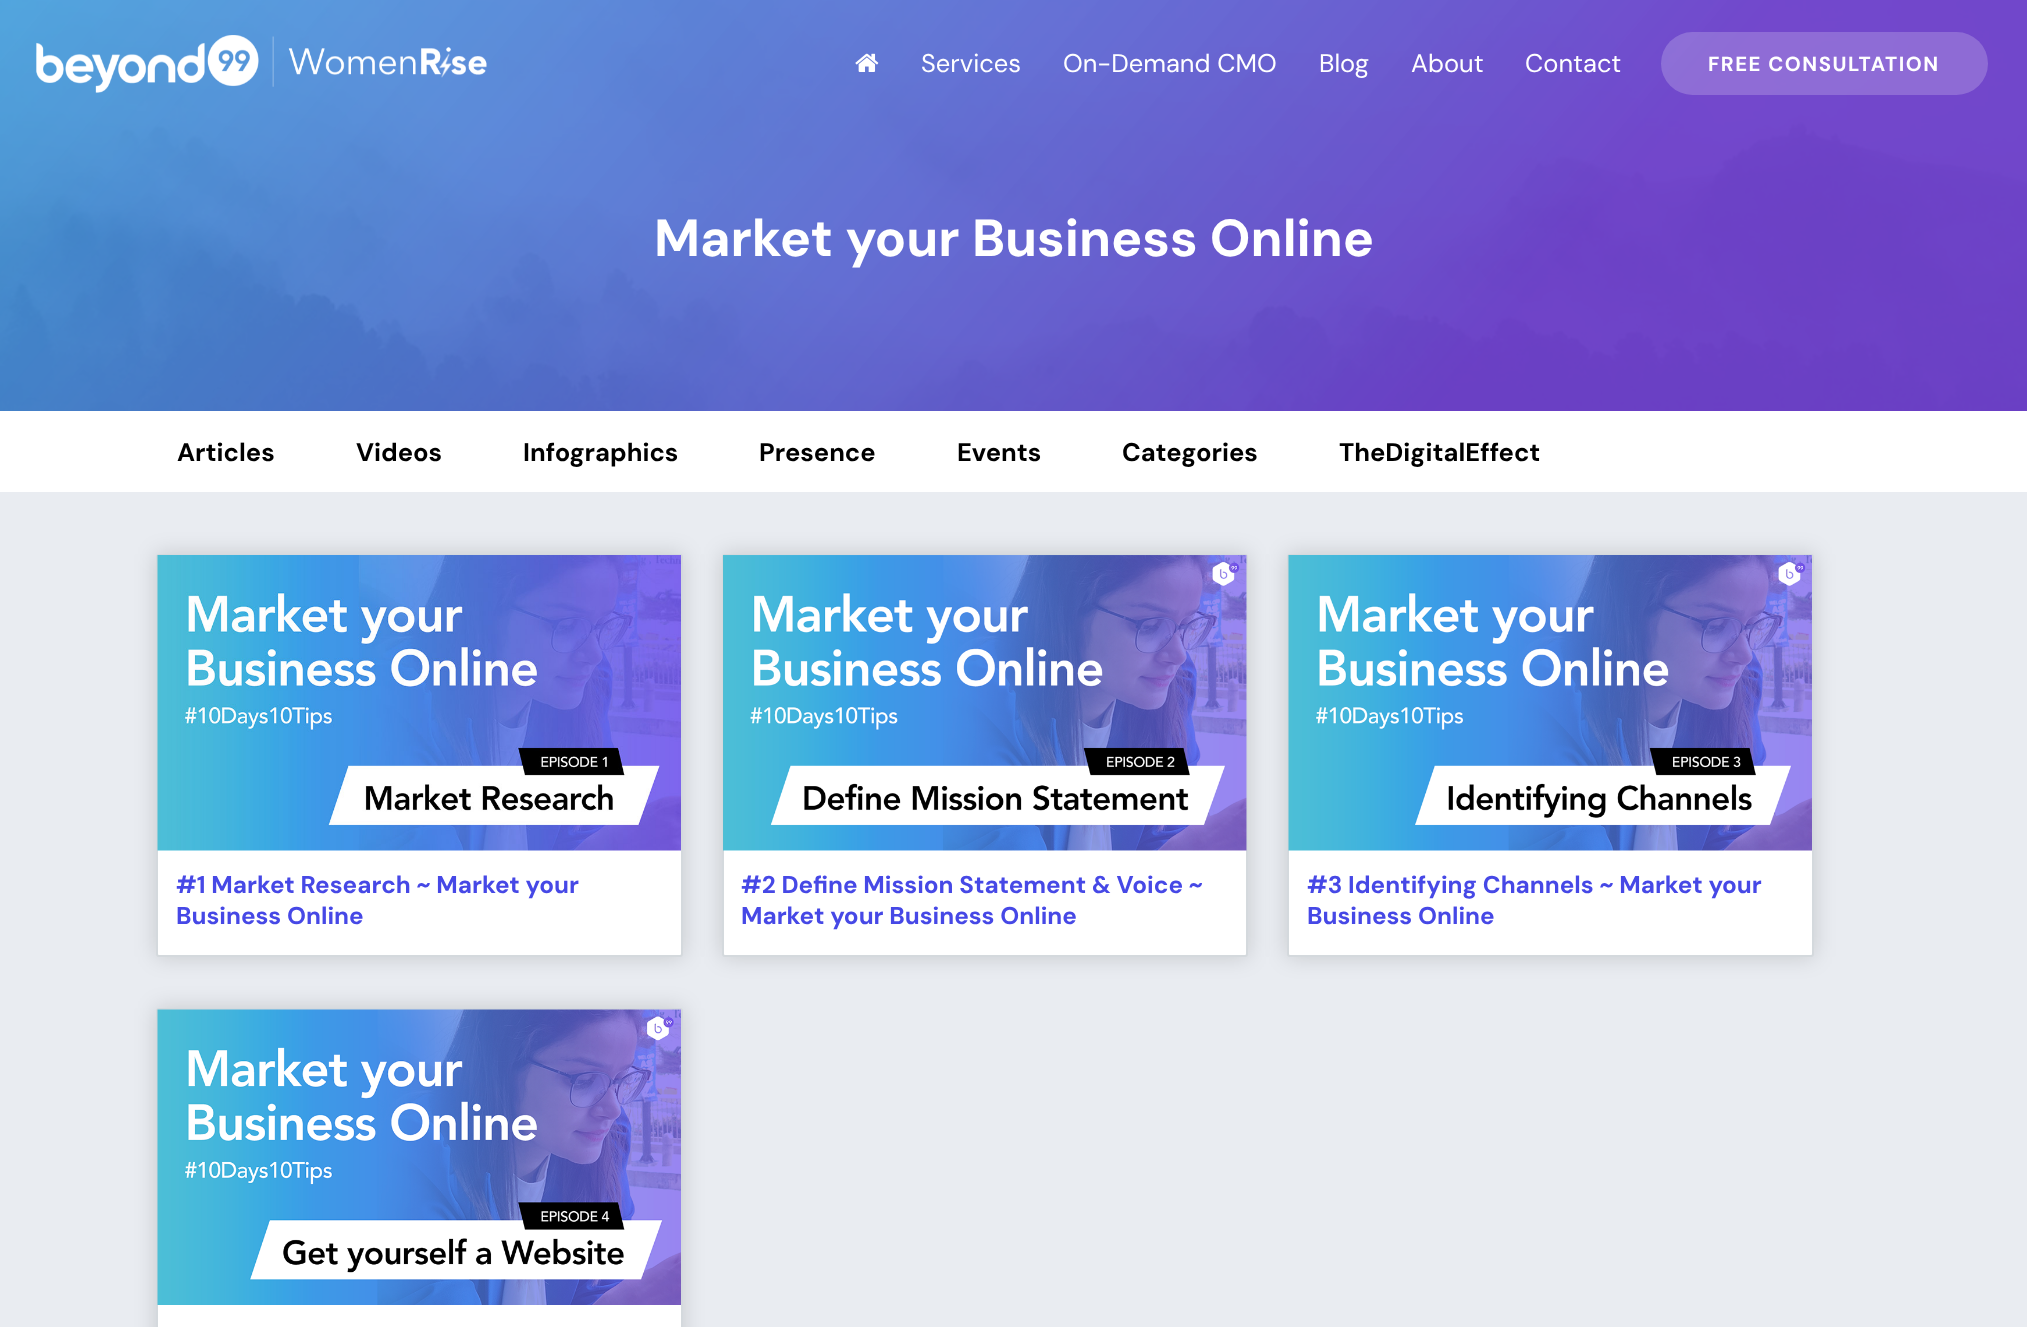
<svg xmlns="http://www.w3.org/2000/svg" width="2027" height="1327">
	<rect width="100%" height="100%" fill="#E9ECF1" />
	<image x="0" y="0" width="2027" height="411" href="assets/img3.png" />
	<image x="36" y="35" width="451" height="58" href="assets/img1.png" />
	<image x="855" y="53" width="24" height="19" href="assets/img2.png" />
	<g font-family="DM Sans" font-size="25.5" fill="#FFFFFF">
		<text x="921" y="72">Services</text>
		<text x="1063" y="72">On-Demand CMO</text>
		<text x="1319" y="72">Blog</text>
		<text x="1411" y="72">About</text>
		<text x="1525" y="72">Contact</text>
	</g>
	<rect x="1661" y="32" width="327" height="63" rx="31.5" fill="#FFFFFF" fill-opacity="0.2" />
	<text x="1708" y="71" font-family="DM Sans" font-size="20.4" font-weight="700" letter-spacing="1.5" fill="#FFFFFF">FREE CONSULTATION</text>
	<text x="654" y="256" font-family="DM Sans" font-size="52" font-weight="700" fill="#FFFFFF">Market your Business Online</text>
	<rect x="0" y="411" width="2027" height="81" fill="#FFFFFF" />
	<g font-family="DM Sans" font-size="25.5" font-weight="700" fill="#000000">
		<text x="177" y="461">Articles</text>
		<text x="356" y="461">Videos</text>
		<text x="523" y="461">Infographics</text>
		<text x="759" y="461">Presence</text>
		<text x="957" y="461">Events</text>
		<text x="1122" y="461">Categories</text>
		<text x="1339" y="461">TheDigitalEffect</text>
	</g>
	<rect x="156" y="554" width="527" height="403" rx="3" fill="#000000" fill-opacity="0.15" filter="blur(11px)" />
	<rect x="157" y="555" width="525" height="401" rx="2" fill="#FFFFFF" stroke="#D4D9DD" stroke-width="2" />
	<image x="157" y="555" width="524" height="296" href="assets/img4.png" />
	<g font-family="DM Sans" font-size="24.25" font-weight="700" fill="#4648E6">
		<text x="176" y="893">#1 Market Research ~ Market your</text>
		<text x="176" y="924">Business Online</text>
	</g>
	<rect x="722" y="554" width="526" height="403" rx="3" fill="#000000" fill-opacity="0.15" filter="blur(11px)" />
	<rect x="723" y="555" width="524" height="401" rx="2" fill="#FFFFFF" stroke="#D4D9DD" stroke-width="2" />
	<image x="723" y="555" width="524" height="296" href="assets/img5.png" />
	<g font-family="DM Sans" font-size="24.25" font-weight="700" fill="#4648E6">
		<text x="741" y="893">#2 Define Mission Statement &amp; Voice ~</text>
		<text x="741" y="924">Market your Business Online</text>
	</g>
	<rect x="1287" y="554" width="527" height="403" rx="3" fill="#000000" fill-opacity="0.15" filter="blur(11px)" />
	<rect x="1288" y="555" width="525" height="401" rx="2" fill="#FFFFFF" stroke="#D4D9DD" stroke-width="2" />
	<image x="1288" y="555" width="524" height="296" href="assets/img6.png" />
	<g font-family="DM Sans" font-size="24.25" font-weight="700" fill="#4648E6">
		<text x="1307" y="893">#3 Identifying Channels ~ Market your</text>
		<text x="1307" y="924">Business Online</text>
	</g>
	<rect x="156" y="1008" width="527" height="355" rx="3" fill="#000000" fill-opacity="0.15" filter="blur(11px)" />
	<rect x="157" y="1009" width="525" height="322" rx="2" fill="#FFFFFF" stroke="#D4D9DD" stroke-width="2" />
	<image x="157" y="1009" width="524" height="296" href="assets/img7.png" />
</svg>
